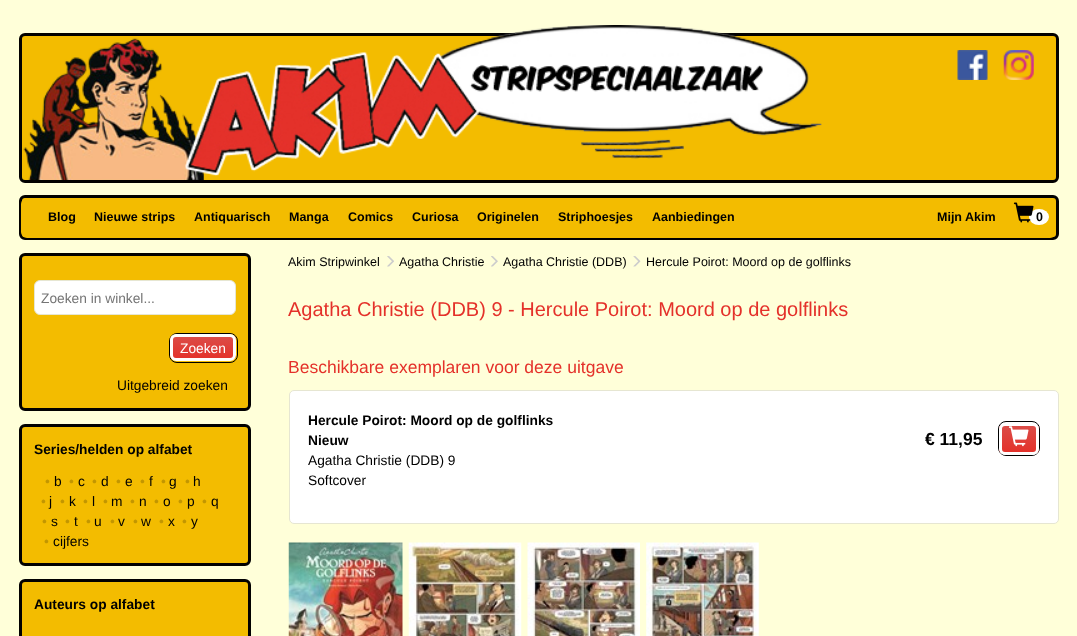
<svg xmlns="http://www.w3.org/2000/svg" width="1077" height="636">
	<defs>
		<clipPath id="clip1"><rect x="170" y="334" width="66" height="27" rx="6" /></clipPath>
		<linearGradient id="g1" gradientUnits="userSpaceOnUse" x1="203" y1="336" x2="203" y2="359"><stop offset="0.01" stop-color="#E25651" /><stop offset="0.01" stop-color="#DB4D48" /><stop offset="1" stop-color="#E4312A" /><stop offset="1" stop-color="#E25651" /><stop offset="1" stop-color="#E4312A" /></linearGradient>
		<clipPath id="clip2"><rect x="999" y="423" width="40" height="32" rx="6" /></clipPath>
		<linearGradient id="g2" gradientUnits="userSpaceOnUse" x1="1019" y1="425" x2="1019" y2="453"><stop offset="0.01" stop-color="#E25651" /><stop offset="0.01" stop-color="#DB4D48" /><stop offset="1" stop-color="#E4312A" /><stop offset="1" stop-color="#E25651" /><stop offset="1" stop-color="#E4312A" /></linearGradient>
	</defs>
	<rect width="100%" height="100%" fill="#FFFFD9" />
	<rect x="20.5" y="34.5" width="1037" height="147" rx="4.5" fill="#F3BC00" stroke="#020100" stroke-width="3" />
	<image x="23" y="25" width="799" height="155" href="assets/img1.png" />
	<image x="957" y="50" width="31" height="30" href="assets/img2.png" />
	<image x="1003" y="50" width="31" height="30" href="assets/img3.png" />
	<rect x="20.5" y="196.5" width="1037" height="42" rx="4.5" fill="#F3BC00" stroke="#020100" stroke-width="3" />
	<rect x="21" y="198" width="1035" height="40" rx="6" fill="#F3BC00" />
	<g font-family="Liberation Sans" font-size="12.5" font-weight="700" fill="#000000">
		<text x="48" y="221">Blog</text>
		<text x="94" y="221">Nieuwe strips</text>
		<text x="194" y="221">Antiquarisch</text>
		<text x="289" y="221">Manga</text>
		<text x="348" y="221">Comics</text>
		<text x="412" y="221">Curiosa</text>
		<text x="477" y="221">Originelen</text>
		<text x="558" y="221">Striphoesjes</text>
		<text x="652" y="221">Aanbiedingen</text>
		<text x="937" y="221">Mijn Akim</text>
	</g>
	<ellipse cx="1039" cy="217" rx="10" ry="8" fill="#FFFFFF" />
	<image x="1013" y="202" width="21" height="21" href="assets/img4.png" />
	<text x="1036" y="221" font-family="Liberation Sans" font-size="12.5" font-weight="700" fill="#000000">0</text>
	<rect x="20.5" y="254.5" width="229" height="155" rx="4.5" fill="#F3BC00" stroke="#020100" stroke-width="3" />
	<rect x="34.5" y="280.5" width="201" height="34" rx="5.5" fill="#FFFFFF" stroke="#E6E6D2" />
	<text x="41" y="303" font-family="Liberation Sans" font-size="13.75" fill="#757575">Zoeken in winkel...</text>
	<rect x="169.5" y="333.5" width="68" height="29" rx="7.5" fill="none" stroke="#000000" />
	<g clip-path="url(#clip1)">
		<rect x="170" y="336" width="66" height="23" fill="url(#g1)" />
	</g>
	<rect x="171.5" y="335.5" width="63" height="24" rx="4.5" fill="none" stroke="#FFFFFF" stroke-width="3" />
	<text x="180" y="353" font-family="Liberation Sans" font-size="13.75" fill="#FFFFFF">Zoeken</text>
	<text x="117" y="390" font-family="Liberation Sans" font-size="13.75" fill="#000000">Uitgebreid zoeken</text>
	<rect x="20.5" y="425.5" width="229" height="139" rx="4.5" fill="#F3BC00" stroke="#020100" stroke-width="3" />
	<text x="34" y="454" font-family="Liberation Sans" font-size="13.75" font-weight="700" fill="#000000">Series/helden op alfabet</text>
	<text x="45" y="486" font-family="Liberation Sans" font-size="13.75" fill="#C29600">•</text>
	<text x="54" y="486" font-family="Liberation Sans" font-size="13.75" fill="#000000">b</text>
	<text x="69" y="486" font-family="Liberation Sans" font-size="13.75" fill="#C29600">•</text>
	<text x="78" y="486" font-family="Liberation Sans" font-size="13.75" fill="#000000">c</text>
	<text x="92" y="486" font-family="Liberation Sans" font-size="13.75" fill="#C29600">•</text>
	<text x="101" y="486" font-family="Liberation Sans" font-size="13.75" fill="#000000">d</text>
	<text x="116" y="486" font-family="Liberation Sans" font-size="13.75" fill="#C29600">•</text>
	<text x="125" y="486" font-family="Liberation Sans" font-size="13.75" fill="#000000">e</text>
	<text x="140" y="486" font-family="Liberation Sans" font-size="13.75" fill="#C29600">•</text>
	<text x="149" y="486" font-family="Liberation Sans" font-size="13.75" fill="#000000">f</text>
	<text x="161" y="486" font-family="Liberation Sans" font-size="13.75" fill="#C29600">•</text>
	<text x="169" y="486" font-family="Liberation Sans" font-size="13.75" fill="#000000">g</text>
	<text x="185" y="486" font-family="Liberation Sans" font-size="13.75" fill="#C29600">•</text>
	<text x="193" y="486" font-family="Liberation Sans" font-size="13.75" fill="#000000">h</text>
	<text x="41" y="506" font-family="Liberation Sans" font-size="13.75" fill="#C29600">•</text>
	<text x="49" y="506" font-family="Liberation Sans" font-size="13.75" fill="#000000">j</text>
	<text x="60" y="506" font-family="Liberation Sans" font-size="13.75" fill="#C29600">•</text>
	<text x="69" y="506" font-family="Liberation Sans" font-size="13.75" fill="#000000">k</text>
	<text x="83" y="506" font-family="Liberation Sans" font-size="13.75" fill="#C29600">•</text>
	<text x="92" y="506" font-family="Liberation Sans" font-size="13.75" fill="#000000">l</text>
	<text x="103" y="506" font-family="Liberation Sans" font-size="13.75" fill="#C29600">•</text>
	<text x="111" y="506" font-family="Liberation Sans" font-size="13.75" fill="#000000">m</text>
	<text x="130" y="506" font-family="Liberation Sans" font-size="13.75" fill="#C29600">•</text>
	<text x="139" y="506" font-family="Liberation Sans" font-size="13.75" fill="#000000">n</text>
	<text x="154" y="506" font-family="Liberation Sans" font-size="13.75" fill="#C29600">•</text>
	<text x="163" y="506" font-family="Liberation Sans" font-size="13.75" fill="#000000">o</text>
	<text x="178" y="506" font-family="Liberation Sans" font-size="13.75" fill="#C29600">•</text>
	<text x="187" y="506" font-family="Liberation Sans" font-size="13.75" fill="#000000">p</text>
	<text x="202" y="506" font-family="Liberation Sans" font-size="13.75" fill="#C29600">•</text>
	<text x="211" y="506" font-family="Liberation Sans" font-size="13.75" fill="#000000">q</text>
	<text x="42" y="526" font-family="Liberation Sans" font-size="13.75" fill="#C29600">•</text>
	<text x="51" y="526" font-family="Liberation Sans" font-size="13.75" fill="#000000">s</text>
	<text x="65" y="526" font-family="Liberation Sans" font-size="13.75" fill="#C29600">•</text>
	<text x="74" y="526" font-family="Liberation Sans" font-size="13.75" fill="#000000">t</text>
	<text x="86" y="526" font-family="Liberation Sans" font-size="13.75" fill="#C29600">•</text>
	<text x="94" y="526" font-family="Liberation Sans" font-size="13.75" fill="#000000">u</text>
	<text x="110" y="526" font-family="Liberation Sans" font-size="13.75" fill="#C29600">•</text>
	<text x="118" y="526" font-family="Liberation Sans" font-size="13.75" fill="#000000">v</text>
	<text x="133" y="526" font-family="Liberation Sans" font-size="13.75" fill="#C29600">•</text>
	<text x="141" y="526" font-family="Liberation Sans" font-size="13.75" fill="#000000">w</text>
	<text x="159" y="526" font-family="Liberation Sans" font-size="13.75" fill="#C29600">•</text>
	<text x="168" y="526" font-family="Liberation Sans" font-size="13.75" fill="#000000">x</text>
	<text x="182" y="526" font-family="Liberation Sans" font-size="13.75" fill="#C29600">•</text>
	<text x="191" y="526" font-family="Liberation Sans" font-size="13.75" fill="#000000">y</text>
	<text x="44" y="546" font-family="Liberation Sans" font-size="13.75" fill="#C29600">•</text>
	<text x="53" y="546" font-family="Liberation Sans" font-size="13.75" fill="#000000">cijfers</text>
	<rect x="20.5" y="580.5" width="229" height="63" rx="4.5" fill="#F3BC00" stroke="#020100" stroke-width="3" />
	<text x="34" y="609" font-family="Liberation Sans" font-size="13.75" font-weight="700" fill="#000000">Auteurs op alfabet</text>
	<text x="288" y="266" font-family="Liberation Sans" font-size="12.5" fill="#000000">Akim Stripwinkel</text>
	<image x="387" y="256" width="7" height="11" href="assets/img5.png" />
	<text x="399" y="266" font-family="Liberation Sans" font-size="12.5" fill="#000000">Agatha Christie</text>
	<image x="491" y="256" width="7" height="11" href="assets/img6.png" />
	<text x="503" y="266" font-family="Liberation Sans" font-size="12.5" fill="#000000">Agatha Christie (DDB)</text>
	<image x="633" y="256" width="8" height="11" href="assets/img7.png" />
	<text x="646" y="266" font-family="Liberation Sans" font-size="12.5" fill="#000000">Hercule Poirot: Moord op de golflinks</text>
	<text x="288" y="316" font-family="Liberation Sans" font-size="20" fill="#E4312A">Agatha Christie (DDB) 9 - Hercule Poirot: Moord op de golflinks</text>
	<text x="288" y="373" font-family="Liberation Sans" font-size="17.5" fill="#E4312A">Beschikbare exemplaren voor deze uitgave</text>
	<rect x="289.5" y="390.5" width="769" height="133" rx="4.5" fill="#FFFFFF" stroke="#E6E6D2" />
	<g font-family="Liberation Sans" font-size="13.75" font-weight="700" fill="#000000">
		<text x="308" y="425">Hercule Poirot: Moord op de golflinks</text>
		<text x="308" y="445">Nieuw</text>
	</g>
	<g font-family="Liberation Sans" font-size="13.75" fill="#000000">
		<text x="308" y="465">Agatha Christie (DDB) 9</text>
		<text x="308" y="485">Softcover</text>
	</g>
	<text x="925" y="445" font-family="Liberation Sans" font-size="17.5" font-weight="700" fill="#000000">€ 11,95</text>
	<rect x="998.5" y="421.5" width="41" height="34" rx="7.5" fill="none" stroke="#000000" />
	<g clip-path="url(#clip2)">
		<rect x="999" y="425" width="40" height="28" fill="url(#g2)" />
	</g>
	<rect x="1000.5" y="424.5" width="37" height="29" rx="4.5" fill="none" stroke="#FFFFFF" stroke-width="3" />
	<image x="1008" y="426" width="21" height="21" href="assets/img8.png" />
	<image x="288" y="542" width="115" height="94" href="assets/img9.png" />
	<image x="408" y="542" width="114" height="94" href="assets/img10.png" />
	<image x="527" y="542" width="113" height="94" href="assets/img11.png" />
	<image x="646" y="542" width="113" height="94" href="assets/img12.png" />
</svg>
